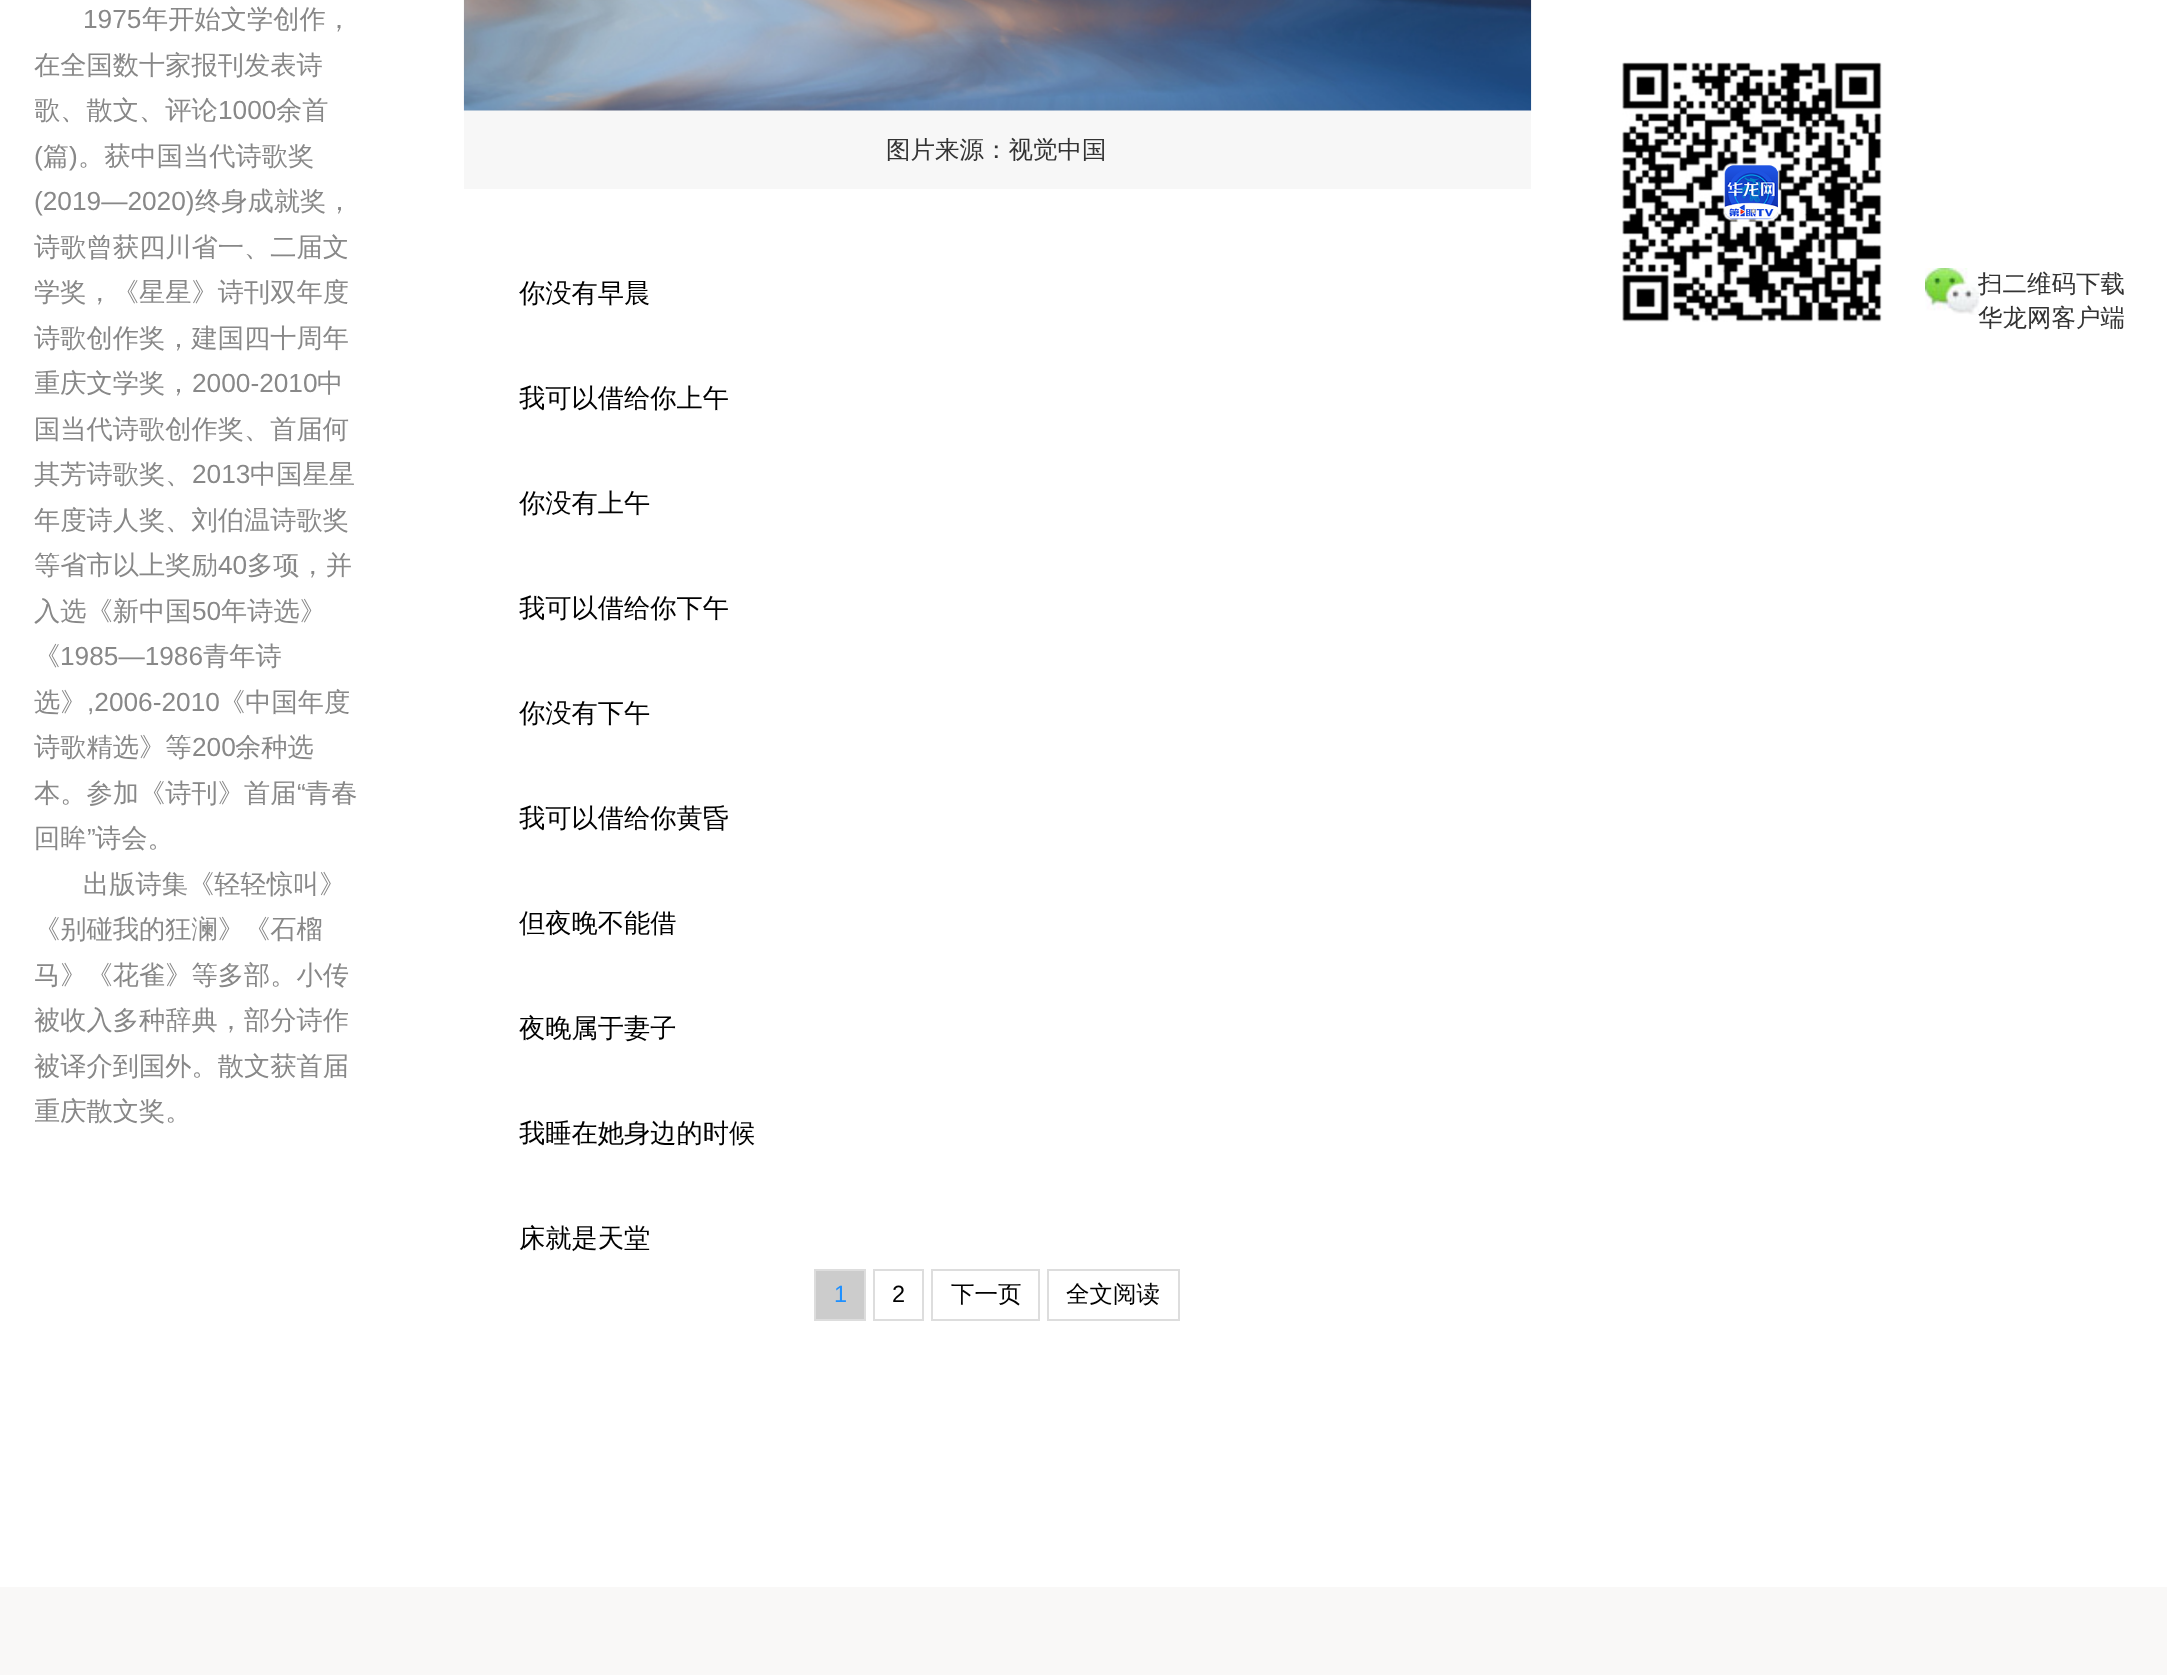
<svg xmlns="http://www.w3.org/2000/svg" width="2167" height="1675">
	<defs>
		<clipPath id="clip1"><rect x="35" y="0" width="333" height="1134" /></clipPath>
	</defs>
	<rect width="100%" height="100%" fill="#FFFFFF" />
	<text x="83" y="28" font-family="Liberation Sans" font-size="26.25" fill="#888888">1975</text>
	<g font-family="WenQuanYi Zen Hei" font-size="26.25" font-weight="500" fill="#888888">
		<text x="142" y="28">年开始文学创作，</text>
		<text x="34" y="74">在全国数十家报刊发表诗</text>
	</g>
	<g clip-path="url(#clip1)">
		<text x="34" y="119" font-family="WenQuanYi Zen Hei" font-size="26.25" font-weight="500" fill="#888888">歌、散文、评论</text>
	</g>
	<text x="218" y="119" font-family="Liberation Sans" font-size="26.25" fill="#888888">1000</text>
	<text x="276" y="119" font-family="WenQuanYi Zen Hei" font-size="26.25" font-weight="500" fill="#888888">余首</text>
	<text x="34" y="165" font-family="Liberation Sans" font-size="26.25" fill="#888888">(</text>
	<text x="43" y="165" font-family="WenQuanYi Zen Hei" font-size="26.25" font-weight="500" fill="#888888">篇</text>
	<text x="69" y="165" font-family="Liberation Sans" font-size="26.25" fill="#888888">)</text>
	<text x="78" y="165" font-family="WenQuanYi Zen Hei" font-size="26.25" font-weight="500" fill="#888888">。获中国当代诗歌奖</text>
	<text x="34" y="210" font-family="Liberation Sans" font-size="26.25" fill="#888888">(2019—2020)</text>
	<g font-family="WenQuanYi Zen Hei" font-size="26.25" font-weight="500" fill="#888888">
		<text x="195" y="210">终身成就奖，</text>
		<text x="34" y="256">诗歌曾获四川省一、二届文</text>
		<text x="34" y="301">学奖，《星星》诗刊双年度</text>
		<text x="34" y="347">诗歌创作奖，建国四十周年</text>
	</g>
	<g clip-path="url(#clip1)">
		<text x="34" y="392" font-family="WenQuanYi Zen Hei" font-size="26.25" font-weight="500" fill="#888888">重庆文学奖，</text>
	</g>
	<text x="192" y="392" font-family="Liberation Sans" font-size="26.25" fill="#888888">2000-2010</text>
	<g font-family="WenQuanYi Zen Hei" font-size="26.25" font-weight="500" fill="#888888">
		<text x="317" y="392">中</text>
		<text x="34" y="438">国当代诗歌创作奖、首届何</text>
		<text x="34" y="483">其芳诗歌奖、</text>
	</g>
	<text x="192" y="483" font-family="Liberation Sans" font-size="26.25" fill="#888888">2013</text>
	<g font-family="WenQuanYi Zen Hei" font-size="26.25" font-weight="500" fill="#888888">
		<text x="250" y="483">中国星星</text>
		<text x="34" y="529">年度诗人奖、刘伯温诗歌奖</text>
		<text x="34" y="574">等省市以上奖励</text>
	</g>
	<text x="218" y="574" font-family="Liberation Sans" font-size="26.25" fill="#888888">40</text>
	<g font-family="WenQuanYi Zen Hei" font-size="26.25" font-weight="500" fill="#888888">
		<text x="247" y="574">多项，并</text>
		<text x="34" y="620">入选《新中国</text>
	</g>
	<text x="192" y="620" font-family="Liberation Sans" font-size="26.25" fill="#888888">50</text>
	<g font-family="WenQuanYi Zen Hei" font-size="26.25" font-weight="500" fill="#888888">
		<text x="221" y="620">年诗选》</text>
		<text x="34" y="665">《</text>
	</g>
	<text x="60" y="665" font-family="Liberation Sans" font-size="26.25" fill="#888888">1985—1986</text>
	<g font-family="WenQuanYi Zen Hei" font-size="26.25" font-weight="500" fill="#888888">
		<text x="203" y="665">青年诗</text>
		<text x="34" y="711">选》</text>
	</g>
	<text x="87" y="711" font-family="Liberation Sans" font-size="26.25" fill="#888888">,2006-2010</text>
	<g font-family="WenQuanYi Zen Hei" font-size="26.25" font-weight="500" fill="#888888">
		<text x="219" y="711">《中国年度</text>
		<text x="34" y="756">诗歌精选》等</text>
	</g>
	<text x="192" y="756" font-family="Liberation Sans" font-size="26.25" fill="#888888">200</text>
	<g font-family="WenQuanYi Zen Hei" font-size="26.25" font-weight="500" fill="#888888">
		<text x="235" y="756">余种选</text>
		<text x="34" y="802">本。参加《诗刊》首届</text>
	</g>
	<text x="297" y="802" font-family="Liberation Sans" font-size="26.25" fill="#888888">“</text>
	<g font-family="WenQuanYi Zen Hei" font-size="26.25" font-weight="500" fill="#888888">
		<text x="305" y="802">青春</text>
		<text x="34" y="847">回眸</text>
	</g>
	<text x="87" y="847" font-family="Liberation Sans" font-size="26.25" fill="#888888">”</text>
	<g font-family="WenQuanYi Zen Hei" font-size="26.25" font-weight="500" fill="#888888">
		<text x="95" y="847">诗会。</text>
		<text x="83" y="893">出版诗集《轻轻惊叫》</text>
		<text x="34" y="938">《别碰我的狂澜》《石榴</text>
		<text x="34" y="984">马》《花雀》等多部。小传</text>
		<text x="34" y="1029">被收入多种辞典，部分诗作</text>
		<text x="34" y="1075">被译介到国外。散文获首届</text>
	</g>
	<g clip-path="url(#clip1)">
		<text x="34" y="1120" font-family="WenQuanYi Zen Hei" font-size="26.25" font-weight="500" fill="#888888">重庆散文奖。</text>
	</g>
	<rect x="464" y="110" width="1067" height="79" fill="#F7F7F7" />
	<image x="463" y="0" width="1069" height="111" href="assets/img1.png" />
	<text x="886" y="158" font-family="WenQuanYi Zen Hei" font-size="24.5" font-weight="500" fill="#333333">图片来源：视觉中国</text>
	<g font-family="WenQuanYi Zen Hei" font-size="26.25" font-weight="500" fill="#000000">
		<text x="519" y="302">你没有早晨</text>
		<text x="519" y="407">我可以借给你上午</text>
		<text x="519" y="512">你没有上午</text>
		<text x="519" y="617">我可以借给你下午</text>
		<text x="519" y="722">你没有下午</text>
		<text x="519" y="827">我可以借给你黄昏</text>
		<text x="519" y="932">但夜晚不能借</text>
		<text x="519" y="1037">夜晚属于妻子</text>
		<text x="519" y="1142">我睡在她身边的时候</text>
		<text x="519" y="1247">床就是天堂</text>
	</g>
	<rect x="815" y="1270" width="50" height="50" fill="#CCCCCC" stroke="#DDDDDD" stroke-width="2" />
	<text x="834" y="1302" font-family="Liberation Sans" font-size="23.5" fill="#1E90FF">1</text>
	<rect x="874" y="1270" width="49" height="50" fill="none" stroke="#DDDDDD" stroke-width="2" />
	<text x="892" y="1302" font-family="Liberation Sans" font-size="23.5" fill="#000000">2</text>
	<rect x="932" y="1270" width="107" height="50" fill="none" stroke="#DDDDDD" stroke-width="2" />
	<text x="951" y="1302" font-family="WenQuanYi Zen Hei" font-size="23.5" font-weight="500" fill="#000000">下一页</text>
	<rect x="1048" y="1270" width="131" height="50" fill="none" stroke="#DDDDDD" stroke-width="2" />
	<text x="1066" y="1302" font-family="WenQuanYi Zen Hei" font-size="23.5" font-weight="500" fill="#000000">全文阅读</text>
	<image x="1622" y="62" width="260" height="260" href="assets/img2.png" />
	<image x="1925" y="268" width="55" height="47" href="assets/img3.png" />
	<g font-family="WenQuanYi Zen Hei" font-size="24.5" font-weight="500" fill="#333333">
		<text x="1978" y="292">扫二维码下载</text>
		<text x="1978" y="326">华龙网客户端</text>
	</g>
	<rect x="0" y="1587" width="2167" height="88" fill="#F9F8F7" />
</svg>
